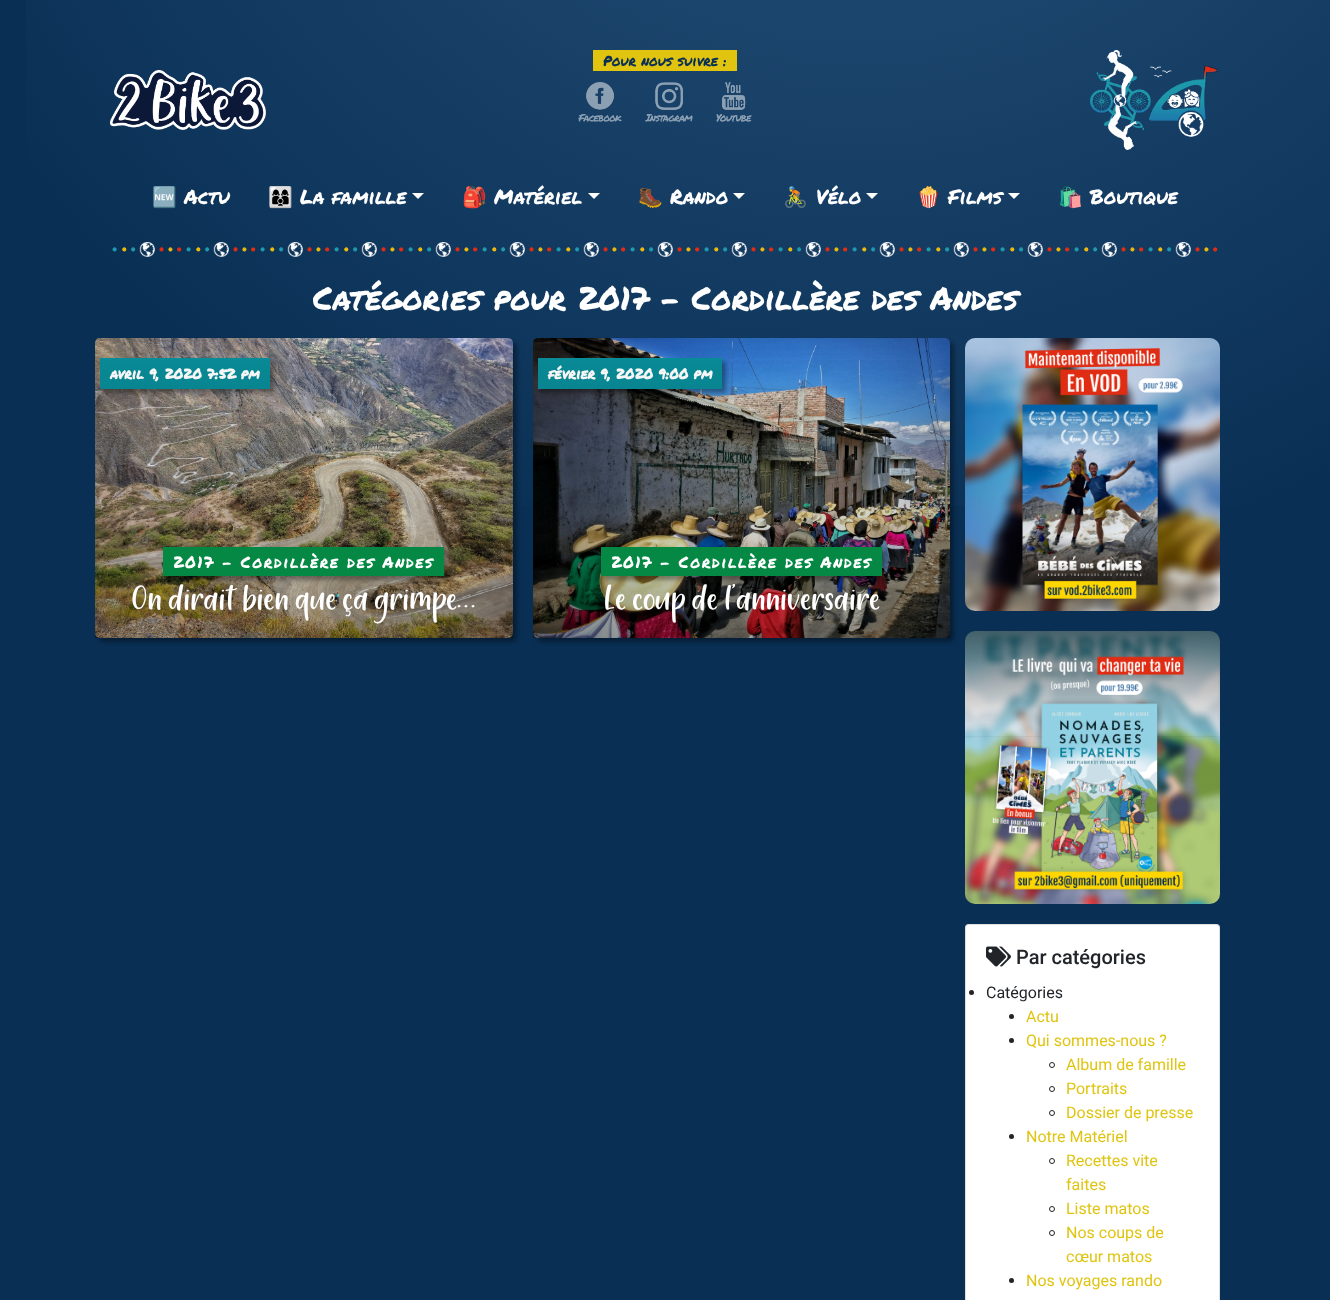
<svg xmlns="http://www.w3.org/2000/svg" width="1330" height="1300">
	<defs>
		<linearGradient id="g1" gradientUnits="userSpaceOnUse" x1="304" y1="338" x2="304" y2="638"><stop offset="0" stop-color="#000000" stop-opacity="0" /><stop offset="1" stop-color="#000000" stop-opacity="0.3" /></linearGradient>
		<linearGradient id="g2" gradientUnits="userSpaceOnUse" x1="742" y1="338" x2="742" y2="638"><stop offset="0" stop-color="#000000" stop-opacity="0" /><stop offset="1" stop-color="#000000" stop-opacity="0.3" /></linearGradient>
	</defs>
	<rect width="100%" height="100%" fill="#092F54" />
	<image x="26" y="0" width="1304" height="506" href="assets/img1.png" />
	<rect x="593" y="50" width="144" height="21" fill="#E0C410" />
	<text x="603" y="66" font-family="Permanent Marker" font-size="14" fill="#092F54">Pour nous suivre :</text>
	<image x="578" y="82" width="44" height="40" href="assets/img2.png" />
	<image x="645" y="82" width="48" height="40" href="assets/img3.png" />
	<image x="716" y="82" width="36" height="40" href="assets/img4.png" />
	<image x="1090" y="50" width="128" height="100" href="assets/img5.png" />
	<image x="110" y="70" width="156" height="60" href="assets/img6.png" />
	<text x="152" y="204" font-family="Noto Color Emoji" font-size="20" fill="#FFFFFF">🆕</text>
	<text x="184" y="204" font-family="Permanent Marker" font-size="20" fill="#FFFFFF">Actu</text>
	<text x="268" y="204" font-family="Noto Color Emoji" font-size="20" fill="#FFFFFF">👩‍👩‍👦</text>
	<text x="300" y="204" font-family="Permanent Marker" font-size="20" fill="#FFFFFF">La famille</text>
	<path d="M412 193H424L418 199Z" fill="#FFFFFF" />
	<text x="462" y="204" font-family="Noto Color Emoji" font-size="20" fill="#FFFFFF">🎒</text>
	<text x="494" y="204" font-family="Permanent Marker" font-size="20" fill="#FFFFFF">Matériel</text>
	<path d="M588 193H600L594 199Z" fill="#FFFFFF" />
	<text x="638" y="204" font-family="Noto Color Emoji" font-size="20" fill="#FFFFFF">🥾</text>
	<text x="670" y="204" font-family="Permanent Marker" font-size="20" fill="#FFFFFF">Rando</text>
	<path d="M733 193H745L739 199Z" fill="#FFFFFF" />
	<text x="783" y="204" font-family="Noto Color Emoji" font-size="20" fill="#FFFFFF">🚴</text>
	<text x="816" y="204" font-family="Permanent Marker" font-size="20" fill="#FFFFFF">Vélo</text>
	<path d="M866 193H878L872 199Z" fill="#FFFFFF" />
	<text x="916" y="204" font-family="Noto Color Emoji" font-size="20" fill="#FFFFFF">🍿</text>
	<text x="948" y="204" font-family="Permanent Marker" font-size="20" fill="#FFFFFF">Films</text>
	<path d="M1008 193H1020L1014 199Z" fill="#FFFFFF" />
	<text x="1058" y="204" font-family="Noto Color Emoji" font-size="20" fill="#FFFFFF">🛍️</text>
	<text x="1090" y="204" font-family="Permanent Marker" font-size="20" fill="#FFFFFF">Boutique</text>
	<image x="112" y="242" width="1106" height="15" href="assets/img7.png" />
	<text x="313" y="310" font-family="Permanent Marker" font-size="32" fill="#FFFFFF">Catégories pour 2017 – Cordillère des Andes</text>
	<rect x="99" y="342" width="418" height="300" rx="5" fill="#000000" fill-opacity="0.35" filter="blur(2px)" />
	<image x="95" y="338" width="418" height="300" href="assets/img8.png" />
	<rect x="104" y="362" width="170" height="31" fill="#000000" fill-opacity="0.35" filter="blur(2px)" />
	<rect x="100" y="358" width="170" height="31" fill="#088C98" />
	<text x="110" y="379" font-family="Permanent Marker" font-size="14" font-weight="700" fill="#FFFFFF">avril 9, 2020 7:52 pm</text>
	<rect x="95" y="360" width="418" height="278" fill="url(#g1)" />
	<rect x="167" y="551" width="281" height="29" fill="#000000" fill-opacity="0.35" filter="blur(2px)" />
	<rect x="163" y="547" width="281" height="29" fill="#048844" />
	<text x="173" y="568" font-family="Permanent Marker" font-size="16" letter-spacing="1.5" fill="#FFFFFF">2017 - Cordillère des Andes</text>
	<text x="131" y="607" font-family="'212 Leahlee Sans'" font-size="35" fill="#FFFFFF">On dirait bien que ça grimpe…</text>
	<rect x="537" y="342" width="417" height="300" rx="5" fill="#000000" fill-opacity="0.35" filter="blur(2px)" />
	<image x="533" y="338" width="417" height="300" href="assets/img9.png" />
	<rect x="542" y="362" width="184" height="31" fill="#000000" fill-opacity="0.35" filter="blur(2px)" />
	<rect x="538" y="358" width="184" height="31" fill="#088C98" />
	<text x="548" y="379" font-family="Permanent Marker" font-size="14" font-weight="700" fill="#FFFFFF">février 9, 2020 9:00 pm</text>
	<rect x="533" y="360" width="417" height="278" fill="url(#g2)" />
	<rect x="605" y="551" width="281" height="29" fill="#000000" fill-opacity="0.35" filter="blur(2px)" />
	<rect x="601" y="547" width="281" height="29" fill="#048844" />
	<text x="611" y="568" font-family="Permanent Marker" font-size="16" letter-spacing="1.5" fill="#FFFFFF">2017 - Cordillère des Andes</text>
	<text x="603" y="607" font-family="'212 Leahlee Sans'" font-size="35" fill="#FFFFFF">Le coup de l’anniversaire</text>
	<image x="965" y="338" width="255" height="273" href="assets/img10.png" />
	<image x="965" y="631" width="255" height="273" href="assets/img11.png" />
	<rect x="965" y="924" width="255" height="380" rx="4" fill="#FFFFFF" />
	<rect x="965.5" y="924.5" width="254" height="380" rx="3.5" fill="none" stroke="#000000" stroke-opacity="0.12" />
	<image x="986" y="946" width="25" height="21" href="assets/img12.png" />
	<text x="1016" y="964" font-family="Roboto" font-size="20" font-weight="500" fill="#212529">Par catégories</text>
	<circle cx="971.5" cy="992.5" r="2.5" fill="#212529" />
	<text x="986" y="998" font-family="Roboto" font-size="16" fill="#212529">Catégories</text>
	<circle cx="1011.5" cy="1016.5" r="2.5" fill="#212529" />
	<text x="1026" y="1022" font-family="Roboto" font-size="16" fill="#E0C410">Actu</text>
	<circle cx="1011.5" cy="1040.5" r="2.5" fill="#212529" />
	<text x="1026" y="1046" font-family="Roboto" font-size="16" fill="#E0C410">Qui sommes-nous ?</text>
	<circle cx="1052" cy="1065" r="2.5" fill="none" stroke="#212529" />
	<text x="1066" y="1070" font-family="Roboto" font-size="16" fill="#E0C410">Album de famille</text>
	<circle cx="1052" cy="1089" r="2.5" fill="none" stroke="#212529" />
	<text x="1066" y="1094" font-family="Roboto" font-size="16" fill="#E0C410">Portraits</text>
	<circle cx="1052" cy="1113" r="2.5" fill="none" stroke="#212529" />
	<text x="1066" y="1118" font-family="Roboto" font-size="16" fill="#E0C410">Dossier de presse</text>
	<circle cx="1011.5" cy="1136.5" r="2.5" fill="#212529" />
	<text x="1026" y="1142" font-family="Roboto" font-size="16" fill="#E0C410">Notre Matériel</text>
	<circle cx="1052" cy="1161" r="2.5" fill="none" stroke="#212529" />
	<g font-family="Roboto" font-size="16" fill="#E0C410">
		<text x="1066" y="1166">Recettes vite</text>
		<text x="1066" y="1190">faites</text>
	</g>
	<circle cx="1052" cy="1209" r="2.5" fill="none" stroke="#212529" />
	<text x="1066" y="1214" font-family="Roboto" font-size="16" fill="#E0C410">Liste matos</text>
	<circle cx="1052" cy="1233" r="2.5" fill="none" stroke="#212529" />
	<g font-family="Roboto" font-size="16" fill="#E0C410">
		<text x="1066" y="1238">Nos coups de</text>
		<text x="1066" y="1262">cœur matos</text>
	</g>
	<circle cx="1011.5" cy="1280.5" r="2.5" fill="#212529" />
	<text x="1026" y="1286" font-family="Roboto" font-size="16" fill="#E0C410">Nos voyages rando</text>
</svg>
